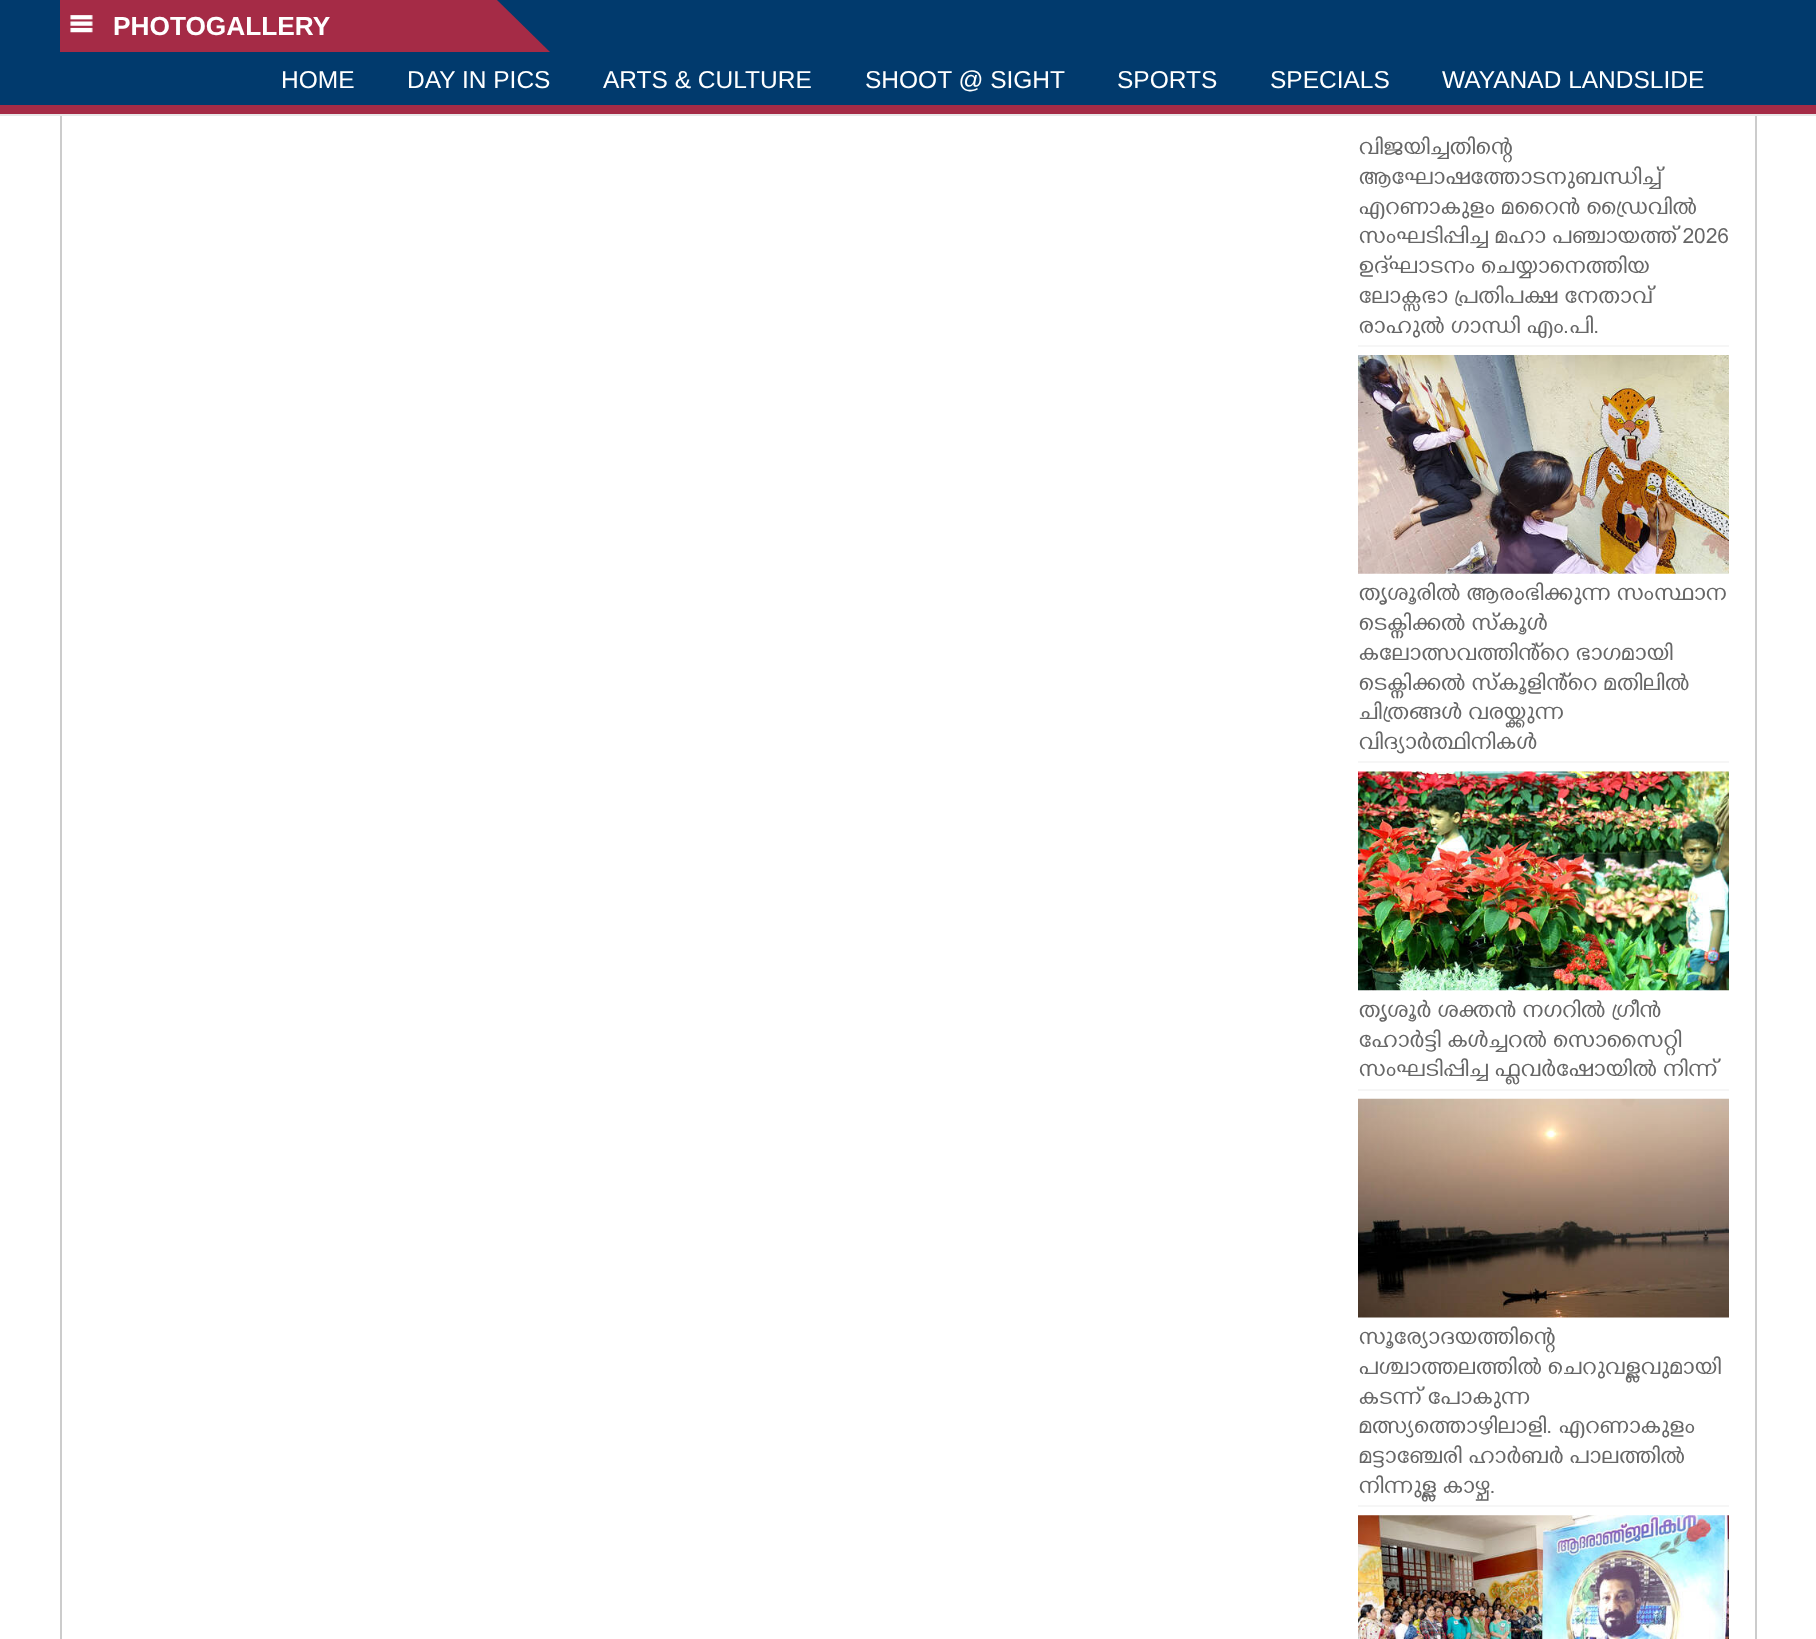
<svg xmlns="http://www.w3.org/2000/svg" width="1816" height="1639">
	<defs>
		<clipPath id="clip1"><rect x="60" y="0" width="490" height="53" /></clipPath>
	</defs>
	<rect width="100%" height="100%" fill="#FFFFFF" />
	<rect x="0" y="0" width="1816" height="105" fill="#013A6D" />
	<rect x="0" y="114" width="1816" height="2" fill="#E7E7E7" />
	<g clip-path="url(#clip1)">
		<path d="M7 0H497L550 52H60Z" fill="#A52B46" />
	</g>
	<image x="70" y="15" width="23" height="18" href="assets/img1.png" />
	<text x="113" y="35" font-family="Liberation Sans" font-size="26.25" font-weight="700" fill="#FFFFFF">PHOTOGALLERY</text>
	<g font-family="Liberation Sans" font-size="24.5" fill="#FFFFFF">
		<text x="281" y="88">HOME</text>
		<text x="407" y="88">DAY IN PICS</text>
		<text x="603" y="88">ARTS &amp; CULTURE</text>
		<text x="865" y="88">SHOOT @ SIGHT</text>
		<text x="1117" y="88">SPORTS</text>
		<text x="1270" y="88">SPECIALS</text>
		<text x="1442" y="88">WAYANAD LANDSLIDE</text>
	</g>
	<rect x="0" y="105" width="1816" height="9" fill="#A52B46" />
	<rect x="1755" y="116" width="2" height="1523" fill="#CCCCCC" />
	<rect x="60" y="116" width="2" height="1523" fill="#CCCCCC" />
	<rect x="1358" y="345" width="371" height="2" fill="#F6F6F6" />
	<g font-family="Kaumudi" font-size="20.8" fill="#666666">
		<text x="1358" y="154">വിജയിച്ചതിന്റെ</text>
		<text x="1358" y="184">ആഘോഷത്തോടനുബന്ധിച്ച്</text>
		<text x="1358" y="214">എറണാകുളം മറൈൻ ഡ്രൈവിൽ</text>
		<text x="1358" y="243">സംഘടിപ്പിച്ച മഹാ പഞ്ചായത്ത് 2026</text>
		<text x="1358" y="273">ഉദ്‌ഘാടനം ചെയ്യാനെത്തിയ</text>
		<text x="1358" y="303">ലോക്സഭാ പ്രതിപക്ഷ നേതാവ്</text>
		<text x="1358" y="333">രാഹുൽ ഗാന്ധി എം.പി.</text>
	</g>
	<rect x="1358" y="761" width="371" height="2" fill="#F6F6F6" />
	<image x="1358" y="355" width="371" height="219" href="assets/img2.png" />
	<g font-family="Kaumudi" font-size="20.8" fill="#666666">
		<text x="1358" y="600">തൃശൂരിൽ ആരംഭിക്കുന്ന സംസ്ഥാന</text>
		<text x="1358" y="630">ടെക്നിക്കൽ സ്കൂൾ</text>
		<text x="1358" y="660">കലോത്സവത്തിൻ്റെ ഭാഗമായി</text>
		<text x="1358" y="690">ടെക്നിക്കൽ സ്കൂളിൻ്റെ മതിലിൽ</text>
		<text x="1358" y="719">ചിത്രങ്ങൾ വരയ്ക്കുന്ന</text>
		<text x="1358" y="749">വിദ്യാർത്ഥിനികൾ</text>
	</g>
	<rect x="1358" y="1089" width="371" height="2" fill="#F6F6F6" />
	<image x="1358" y="771" width="371" height="220" href="assets/img3.png" />
	<g font-family="Kaumudi" font-size="20.8" fill="#666666">
		<text x="1358" y="1017">തൃശൂർ ശക്തൻ നഗറിൽ ഗ്രീൻ</text>
		<text x="1358" y="1047">ഹോർട്ടി കൾച്ചറൽ സൊസൈറ്റി</text>
		<text x="1358" y="1076">സംഘടിപ്പിച്ച ഫ്ലവർഷോയിൽ നിന്ന്</text>
	</g>
	<rect x="1358" y="1505" width="371" height="2" fill="#F6F6F6" />
	<image x="1358" y="1098" width="371" height="220" href="assets/img4.png" />
	<g font-family="Kaumudi" font-size="20.8" fill="#666666">
		<text x="1358" y="1344">സൂര്യോദയത്തിന്റെ</text>
		<text x="1358" y="1374">പശ്ചാത്തലത്തിൽ ചെറുവള്ളവുമായി</text>
		<text x="1358" y="1404">കടന്ന് പോകുന്ന</text>
		<text x="1358" y="1433">മത്സ്യത്തൊഴിലാളി. എറണാകുളം</text>
		<text x="1358" y="1463">മട്ടാഞ്ചേരി ഹാർബർ പാലത്തിൽ</text>
		<text x="1358" y="1493">നിന്നുള്ള കാഴ്ച.</text>
	</g>
	<image x="1358" y="1515" width="371" height="124" href="assets/img5.png" />
</svg>
